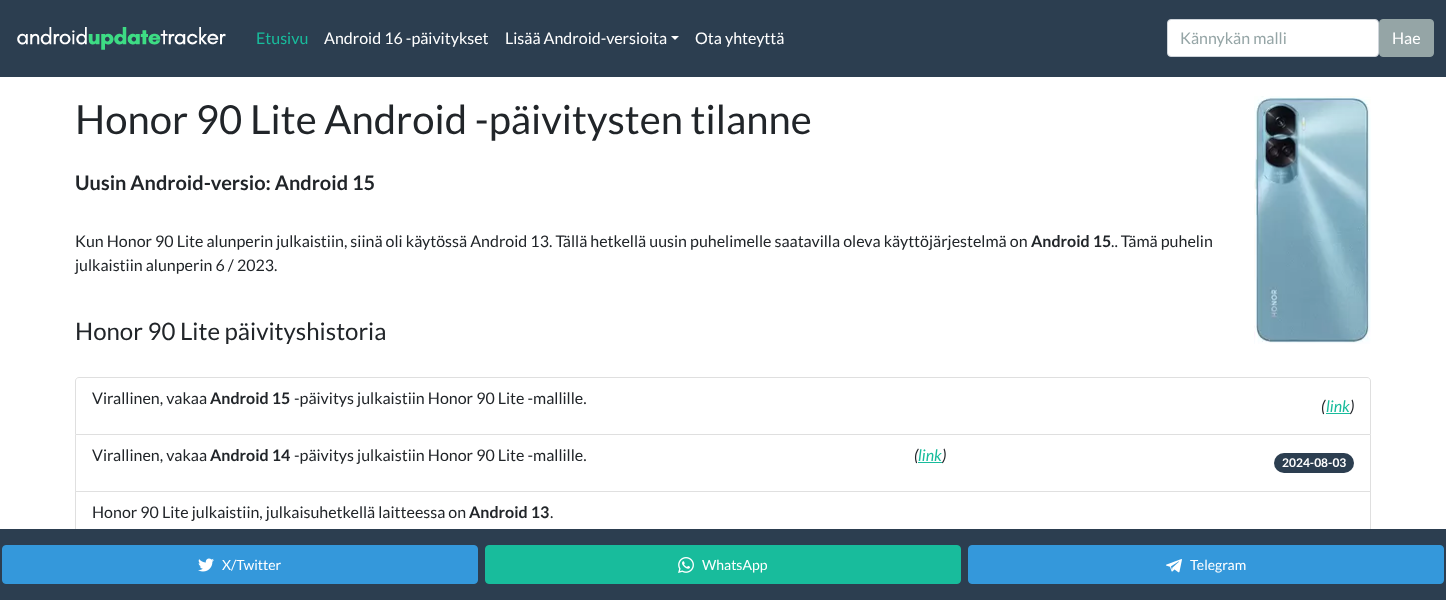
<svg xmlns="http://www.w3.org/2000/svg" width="1446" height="600">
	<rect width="100%" height="100%" fill="#FFFFFF" />
	<rect x="0" y="0" width="1446" height="77" fill="#2C3E50" />
	<image x="17" y="27" width="209" height="23" href="assets/img1.png" />
	<text x="256" y="44" font-family="Lato" font-size="16" fill="#18BC9C">Etusivu</text>
	<g font-family="Lato" font-size="16" fill="#FFFFFF">
		<text x="324" y="44">Android 16 -päivitykset</text>
		<text x="505" y="44">Lisää Android-versioita</text>
	</g>
	<path d="M671 36H679L675 40Z" fill="#FFFFFF" />
	<text x="695" y="44" font-family="Lato" font-size="16" fill="#FFFFFF">Ota yhteyttä</text>
	<rect x="1167.5" y="19.5" width="211" height="37" rx="3.5" fill="#FFFFFF" stroke="#CED4DA" />
	<text x="1180" y="44" font-family="Lato" font-size="16" fill="#95A5A6">Kännykän malli</text>
	<rect x="1379.5" y="19.5" width="54" height="37" rx="3.5" fill="#95A5A6" stroke="#95A5A6" />
	<text x="1392" y="44" font-family="Lato" font-size="16" fill="#FFFFFF">Hae</text>
	<text x="75" y="134" font-family="Lato" font-size="40" fill="#212529">Honor 90 Lite Android -päivitysten tilanne</text>
	<image x="1254" y="96" width="117" height="248" href="assets/img2.png" />
	<text x="75" y="190" font-family="Lato" font-size="20" font-weight="700" fill="#212529">Uusin Android-versio: Android 15</text>
	<text x="75" y="247" font-family="Lato" font-size="16" fill="#212529">Kun Honor 90 Lite alunperin julkaistiin, siinä oli käytössä Android 13. Tällä hetkellä uusin puhelimelle saatavilla oleva käyttöjärjestelmä on</text>
	<text x="1031" y="247" font-family="Lato" font-size="16" font-weight="700" fill="#212529">Android 15</text>
	<g font-family="Lato" font-size="16" fill="#212529">
		<text x="1111" y="247">.. Tämä puhelin</text>
		<text x="75" y="271">julkaistiin alunperin 6 / 2023.</text>
	</g>
	<text x="75" y="340" font-family="Lato" font-size="24" fill="#212529">Honor 90 Lite päivityshistoria</text>
	<path d="M79 377.5H1367C1369 377.5 1370.5 379 1370.5 381V434.5H75.5V381C75.5 379 77 377.5 79 377.5Z" fill="none" stroke="#DFDFDF" />
	<text x="92" y="404" font-family="Lato" font-size="16" fill="#212529">Virallinen, vakaa</text>
	<text x="210" y="404" font-family="Lato" font-size="16" font-weight="700" fill="#212529">Android 15</text>
	<text x="294" y="404" font-family="Lato" font-size="16" fill="#212529">-päivitys julkaistiin Honor 90 Lite -mallille.</text>
	<text x="1321" y="412" font-family="Lato" font-size="16" font-style="italic" fill="#212529">(</text>
	<rect x="1326" y="413" width="24" height="1" fill="#18BC9C" />
	<text x="1326" y="412" font-family="Lato" font-size="16" font-style="italic" fill="#18BC9C">link</text>
	<text x="1350" y="412" font-family="Lato" font-size="16" font-style="italic" fill="#212529">)</text>
	<path d="M1371 435V492L1370 491V435Z" fill="#DFDFDF" />
	<path d="M1371 492H75L76 491H1370Z" fill="#000000" fill-opacity="0.12" />
	<path d="M75 492V435H76V491Z" fill="#000000" fill-opacity="0.12" />
	<text x="92" y="461" font-family="Lato" font-size="16" fill="#212529">Virallinen, vakaa</text>
	<text x="210" y="461" font-family="Lato" font-size="16" font-weight="700" fill="#212529">Android 14</text>
	<text x="294" y="461" font-family="Lato" font-size="16" fill="#212529">-päivitys julkaistiin Honor 90 Lite -mallille.</text>
	<text x="914" y="461" font-family="Lato" font-size="16" font-style="italic" fill="#212529">(</text>
	<rect x="918" y="462" width="24" height="1" fill="#18BC9C" />
	<text x="918" y="461" font-family="Lato" font-size="16" font-style="italic" fill="#18BC9C">link</text>
	<text x="942" y="461" font-family="Lato" font-size="16" font-style="italic" fill="#212529">)</text>
	<rect x="1274" y="453" width="80" height="20" rx="10" fill="#2C3E50" />
	<text x="1282" y="467" font-family="Lato" font-size="12" font-weight="700" fill="#FFFFFF">2024-08-03</text>
	<path d="M75 492H1371V529C1371 531 1369 533 1367 533H79C77 533 75 531 75 529ZM76 492H1370V529C1370 531 1369 532 1367 532H79C77 532 76 531 76 529Z" fill="#DFDFDF" fill-rule="evenodd" />
	<text x="92" y="518" font-family="Lato" font-size="16" fill="#212529">Honor 90 Lite julkaistiin, julkaisuhetkellä laitteessa on</text>
	<text x="469" y="518" font-family="Lato" font-size="16" font-weight="700" fill="#212529">Android 13</text>
	<text x="550" y="518" font-family="Lato" font-size="16" fill="#212529">.</text>
	<rect x="0" y="529" width="1446" height="71" fill="#2C3E50" />
	<rect x="2.5" y="545.5" width="475" height="38" rx="3.5" fill="#3498DB" stroke="#3498DB" />
	<image x="198" y="558" width="16" height="14" href="assets/img3.png" />
	<text x="222" y="570" font-family="Lato" font-size="14" fill="#FFFFFF">X/Twitter</text>
	<rect x="485.5" y="545.5" width="475" height="38" rx="3.5" fill="#18BC9C" stroke="#18BC9C" />
	<image x="678" y="557" width="16" height="16" href="assets/img4.png" />
	<text x="702" y="570" font-family="Lato" font-size="14" fill="#FFFFFF">WhatsApp</text>
	<rect x="968.5" y="545.5" width="475" height="38" rx="3.5" fill="#3498DB" stroke="#3498DB" />
	<image x="1166" y="559" width="16" height="14" href="assets/img5.png" />
	<text x="1190" y="570" font-family="Lato" font-size="14" fill="#FFFFFF">Telegram</text>
</svg>
